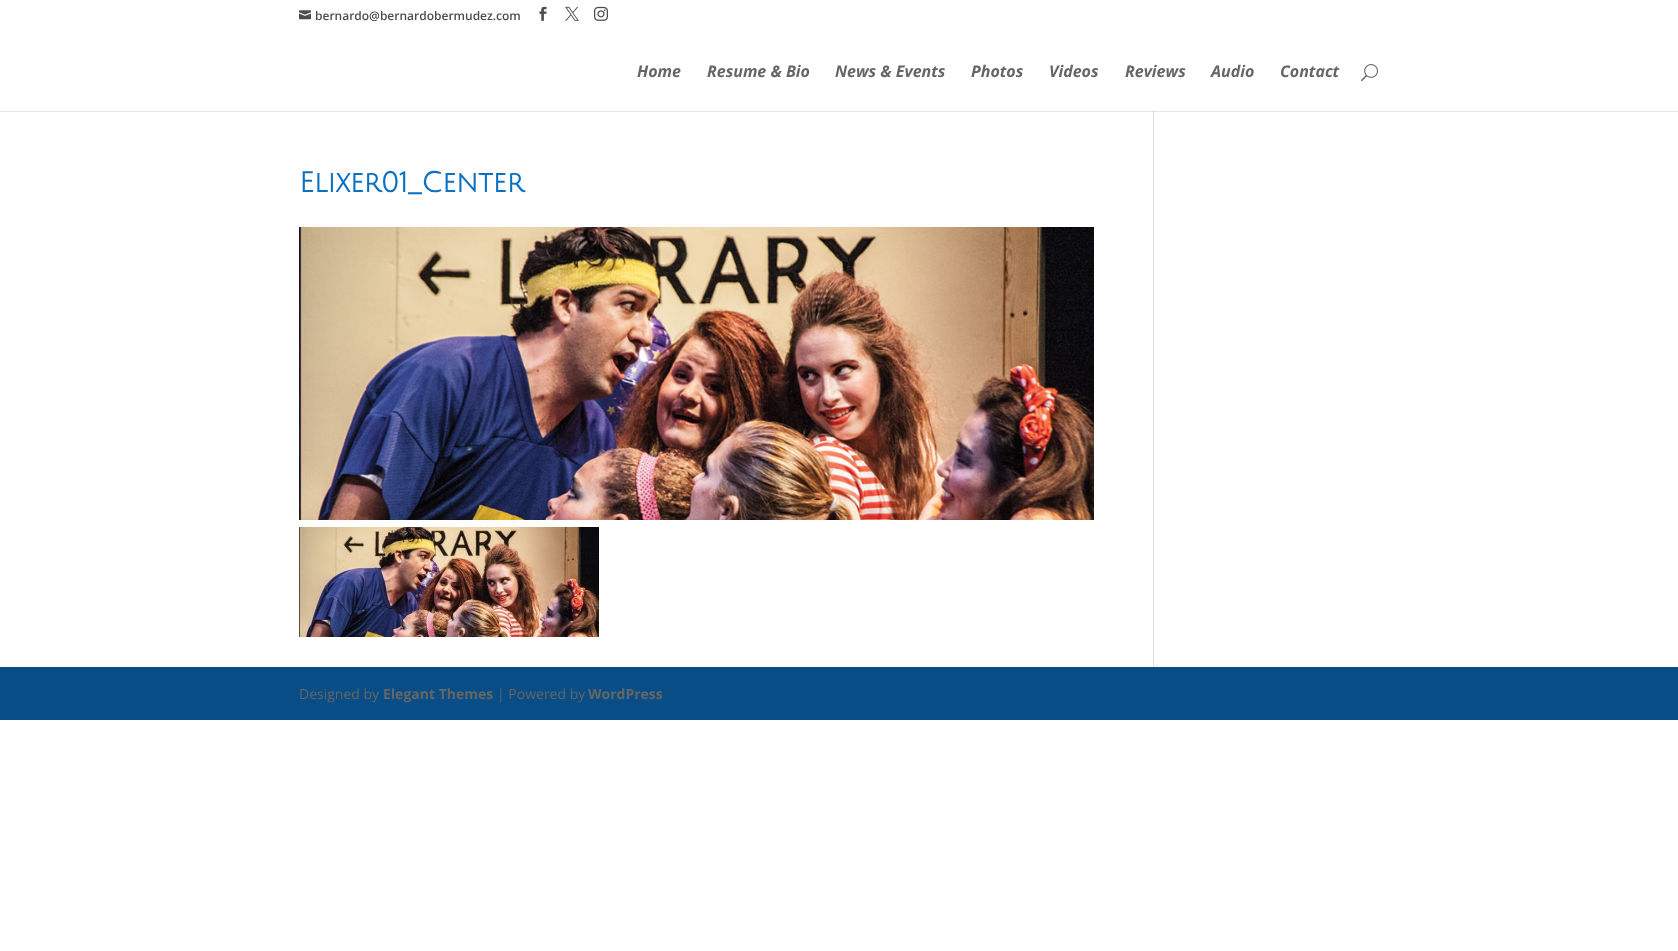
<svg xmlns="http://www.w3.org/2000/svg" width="1678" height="951">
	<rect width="100%" height="100%" fill="#FFFFFF" />
	<image x="299" y="10" width="12" height="10" href="assets/img1.png" />
	<text x="315" y="20" font-family="Open Sans" font-size="12" font-weight="600" fill="#4D4D4D">bernardo@bernardobermudez.com</text>
	<image x="539" y="6" width="8" height="15" href="assets/img2.png" />
	<image x="565" y="6" width="14" height="15" href="assets/img3.png" />
	<image x="594" y="6" width="14" height="15" href="assets/img4.png" />
	<rect x="1153" y="111" width="1" height="556" fill="#E2E2E2" />
	<rect x="0" y="111" width="1678" height="1" fill="#000000" fill-opacity="0.1" />
	<g font-family="Open Sans" font-size="16" font-weight="700" font-style="italic" fill="#666666">
		<text x="637" y="77">Home</text>
		<text x="707" y="77">Resume &amp; Bio</text>
		<text x="835" y="77">News &amp; Events</text>
		<text x="971" y="77">Photos</text>
		<text x="1049" y="77">Videos</text>
		<text x="1125" y="77">Reviews</text>
		<text x="1211" y="77">Audio</text>
		<text x="1280" y="77">Contact</text>
	</g>
	<image x="1361" y="64" width="17" height="18" href="assets/img5.png" />
	<text x="299" y="192" font-family="Julius Sans One" font-size="28" font-weight="700" fill="#0C71C3">Elixer01_Center</text>
	<image x="299" y="227" width="795" height="293" href="assets/img6.png" />
	<image x="299" y="527" width="300" height="110" href="assets/img7.png" />
	<rect x="0" y="667" width="1678" height="53" fill="#084D85" />
	<text x="299" y="699" font-family="Open Sans" font-size="14" fill="#666666">Designed by</text>
	<text x="383" y="699" font-family="Open Sans" font-size="14" font-weight="700" fill="#666666">Elegant Themes</text>
	<text x="497" y="699" font-family="Open Sans" font-size="14" fill="#666666">| Powered by</text>
	<text x="588" y="699" font-family="Open Sans" font-size="14" font-weight="700" fill="#666666">WordPress</text>
</svg>
